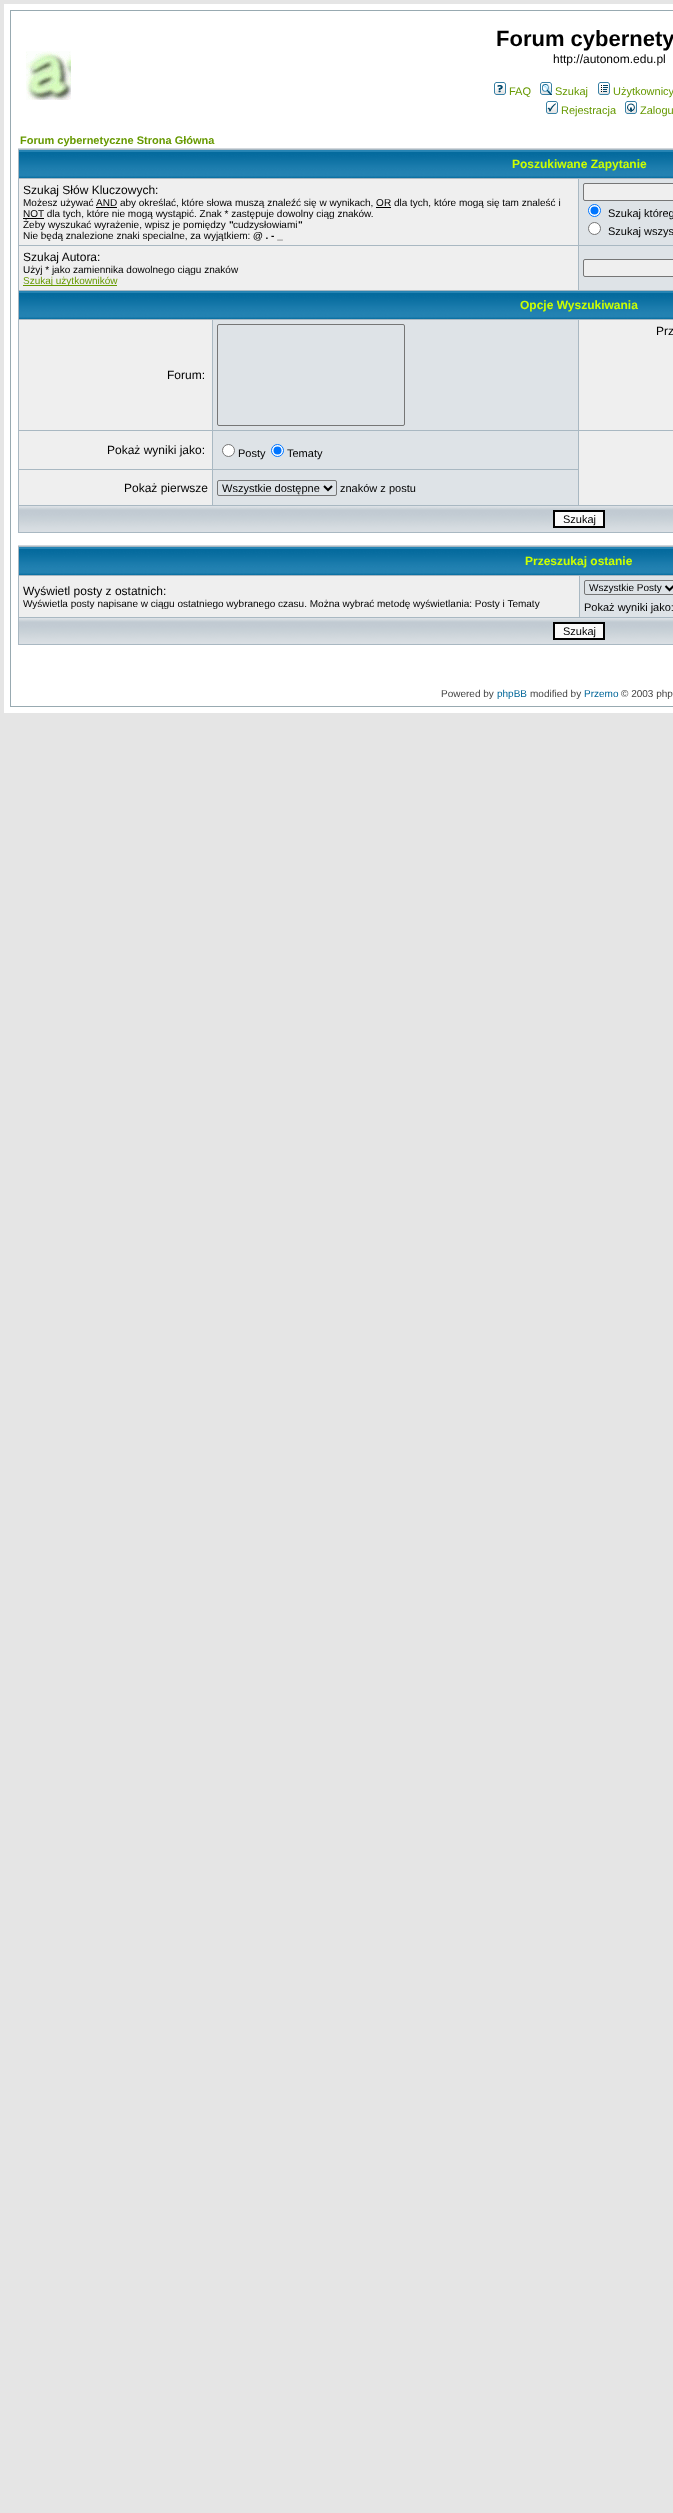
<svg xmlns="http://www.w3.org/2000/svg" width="673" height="2513">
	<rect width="100%" height="100%" fill="#E5E5E5" />
	<rect x="4" y="4" width="669" height="709" fill="#FFFFFF" />
	<rect x="10.5" y="10.5" width="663" height="696" fill="none" stroke="#98AAB1" />
	<image x="26" y="51" width="45" height="49" href="assets/img1.png" />
	<text x="496" y="46" font-family="Liberation Sans" font-size="22" font-weight="700" fill="#000000">Forum cybernety</text>
	<text x="553" y="63" font-family="Liberation Sans" font-size="12" fill="#000000">http://autonom.edu.pl</text>
	<image x="494" y="82" width="12" height="13" href="assets/img2.png" />
	<text x="509" y="95" font-family="Liberation Sans" font-size="11" fill="#669900">FAQ</text>
	<image x="540" y="82" width="12" height="13" href="assets/img3.png" />
	<text x="555" y="95" font-family="Liberation Sans" font-size="11" fill="#669900">Szukaj</text>
	<image x="598" y="82" width="12" height="13" href="assets/img4.png" />
	<text x="613" y="95" font-family="Liberation Sans" font-size="11" fill="#669900">Użytkownicy</text>
	<image x="546" y="101" width="12" height="13" href="assets/img5.png" />
	<text x="561" y="114" font-family="Liberation Sans" font-size="11" fill="#669900">Rejestracja</text>
	<image x="625" y="101" width="12" height="13" href="assets/img6.png" />
	<text x="640" y="114" font-family="Liberation Sans" font-size="11" fill="#669900">Zalogu</text>
	<text x="20" y="144" font-family="Liberation Sans" font-size="11" font-weight="700" fill="#669900">Forum cybernetyczne Strona Główna</text>
	<rect x="18" y="149" width="655" height="384" fill="#A9B8C2" />
	<rect x="18" y="148" width="655" height="1" fill="#D1D7DC" />
	<image x="19" y="150" width="654" height="28" href="assets/img7.png" />
	<text x="512" y="168" font-family="Liberation Sans" font-size="12" font-weight="700" fill="#CCFF00">Poszukiwane Zapytanie</text>
	<rect x="19" y="179" width="559" height="66" fill="#EFEFEF" />
	<text x="23" y="194" font-family="Liberation Sans" font-size="12" fill="#000000">Szukaj Słów Kluczowych:</text>
	<text x="23" y="206" font-family="Liberation Sans" font-size="10" fill="#000000">Możesz używać</text>
	<rect x="96" y="207" width="21" height="1" fill="#000000" />
	<text x="96" y="206" font-family="Liberation Sans" font-size="10" fill="#000000">AND aby określać, które słowa muszą znaleźć się w wynikach, OR dla tych, które mogą się tam znaleść i</text>
	<rect x="376" y="207" width="15" height="1" fill="#000000" />
	<rect x="23" y="218" width="21" height="1" fill="#000000" />
	<g font-family="Liberation Sans" font-size="10" fill="#000000">
		<text x="23" y="217">NOT dla tych, które nie mogą wystąpić. Znak * zastępuje dowolny ciąg znaków.</text>
		<text x="23" y="228">Żeby wyszukać wyrażenie, wpisz je pomiędzy</text>
	</g>
	<text x="229" y="228" font-family="Liberation Sans" font-size="10" font-weight="700" fill="#000000">"</text>
	<text x="233" y="228" font-family="Liberation Sans" font-size="10" fill="#000000">cudzysłowiami</text>
	<text x="298" y="228" font-family="Liberation Sans" font-size="10" font-weight="700" fill="#000000">"</text>
	<text x="23" y="239" font-family="Liberation Sans" font-size="10" fill="#000000">Nie będą znalezione znaki specialne, za wyjątkiem:</text>
	<text x="253" y="239" font-family="Liberation Sans" font-size="10" font-weight="700" fill="#000000">@ . - _</text>
	<rect x="579" y="179" width="94" height="66" fill="#DEE3E7" />
	<rect x="583.5" y="183.5" width="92" height="17" rx="1.5" fill="#EFEFEF" stroke="#767676" />
	<circle cx="594.5" cy="210.5" r="6" fill="#FFFFFF" stroke="#0075FF" />
	<circle cx="594.5" cy="210.5" r="4" fill="#0075FF" />
	<text x="608" y="217" font-family="Liberation Sans" font-size="11" fill="#000000">Szukaj któreg</text>
	<circle cx="594.5" cy="228.5" r="6" fill="#FFFFFF" stroke="#767676" />
	<text x="608" y="235" font-family="Liberation Sans" font-size="11" fill="#000000">Szukaj wszys</text>
	<rect x="19" y="246" width="559" height="44" fill="#EFEFEF" />
	<text x="23" y="261" font-family="Liberation Sans" font-size="12" fill="#000000">Szukaj Autora:</text>
	<text x="23" y="273" font-family="Liberation Sans" font-size="10" fill="#000000">Użyj * jako zamiennika dowolnego ciągu znaków</text>
	<rect x="23" y="285" width="94" height="1" fill="#669900" />
	<text x="23" y="284" font-family="Liberation Sans" font-size="10" fill="#669900">Szukaj użytkowników</text>
	<rect x="579" y="246" width="94" height="44" fill="#DEE3E7" />
	<rect x="583.5" y="259.5" width="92" height="17" rx="1.5" fill="#EFEFEF" stroke="#767676" />
	<image x="19" y="291" width="654" height="28" href="assets/img7.png" />
	<text x="520" y="309" font-family="Liberation Sans" font-size="12" font-weight="700" fill="#CCFF00">Opcje Wyszukiwania</text>
	<rect x="213" y="320" width="365" height="110" fill="#DEE3E7" />
	<rect x="217.5" y="324.5" width="187" height="101" rx="1.5" fill="none" stroke="#767676" />
	<rect x="579" y="320" width="94" height="110" fill="#EFEFEF" />
	<text x="656" y="335" font-family="Liberation Sans" font-size="12" fill="#000000">Prz</text>
	<rect x="19" y="320" width="193" height="110" fill="#EFEFEF" />
	<text x="167" y="379" font-family="Liberation Sans" font-size="12" fill="#000000">Forum:</text>
	<rect x="19" y="431" width="193" height="38" fill="#EFEFEF" />
	<text x="107" y="454" font-family="Liberation Sans" font-size="12" fill="#000000">Pokaż wyniki jako:</text>
	<rect x="213" y="431" width="365" height="38" fill="#DEE3E7" />
	<circle cx="228.5" cy="450.5" r="6" fill="#FFFFFF" stroke="#767676" />
	<text x="238" y="457" font-family="Liberation Sans" font-size="11" fill="#000000">Posty</text>
	<circle cx="277.5" cy="450.5" r="6" fill="#FFFFFF" stroke="#0075FF" />
	<circle cx="277.5" cy="450.5" r="4" fill="#0075FF" />
	<text x="287" y="457" font-family="Liberation Sans" font-size="11" fill="#000000">Tematy</text>
	<rect x="579" y="431" width="94" height="74" fill="#EFEFEF" />
	<rect x="19" y="470" width="193" height="35" fill="#EFEFEF" />
	<text x="124" y="492" font-family="Liberation Sans" font-size="12" fill="#000000">Pokaż pierwsze</text>
	<rect x="213" y="470" width="365" height="35" fill="#DEE3E7" />
	<rect x="217.5" y="480.5" width="119" height="15" rx="1.5" fill="none" stroke="#767676" />
	<path d="M324 486L328 490L332 486" fill="none" stroke="#000000" stroke-width="2" />
	<g font-family="Liberation Sans" font-size="11" fill="#000000">
		<text x="222" y="492">Wszystkie dostępne</text>
		<text x="340" y="492">znaków z postu</text>
	</g>
	<image x="19" y="506" width="654" height="26" href="assets/img8.png" />
	<rect x="554" y="511" width="50" height="16" fill="#FAFAFA" stroke="#000000" stroke-width="2" />
	<text x="563" y="523" font-family="Liberation Sans" font-size="11" fill="#000000">Szukaj</text>
	<rect x="18" y="546" width="655" height="99" fill="#A9B8C2" />
	<rect x="18" y="545" width="655" height="1" fill="#D1D7DC" />
	<image x="19" y="547" width="654" height="28" href="assets/img7.png" />
	<text x="525" y="565" font-family="Liberation Sans" font-size="12" font-weight="700" fill="#CCFF00">Przeszukaj ostanie</text>
	<rect x="19" y="576" width="560" height="41" fill="#EFEFEF" />
	<text x="23" y="595" font-family="Liberation Sans" font-size="12" fill="#000000">Wyświetl posty z ostatnich:</text>
	<text x="23" y="607" font-family="Liberation Sans" font-size="10" fill="#000000">Wyświetla posty napisane w ciągu ostatniego wybranego czasu. Można wybrać metodę wyświetlania: Posty i Tematy</text>
	<rect x="580" y="576" width="93" height="41" fill="#DEE3E7" />
	<rect x="584.5" y="580.5" width="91" height="14" rx="1.5" fill="none" stroke="#767676" />
	<path d="M665.5 586L669.5 590L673.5 586" fill="none" stroke="#000000" stroke-width="2" />
	<text x="589" y="591" font-family="Liberation Sans" font-size="10" fill="#000000">Wszystkie Posty</text>
	<text x="584" y="611" font-family="Liberation Sans" font-size="11" fill="#000000">Pokaż wyniki jako:</text>
	<image x="19" y="618" width="654" height="26" href="assets/img8.png" />
	<rect x="554" y="623" width="50" height="16" fill="#FAFAFA" stroke="#000000" stroke-width="2" />
	<text x="563" y="635" font-family="Liberation Sans" font-size="11" fill="#000000">Szukaj</text>
	<text x="441" y="697" font-family="Liberation Sans" font-size="10" fill="#444444">Powered by</text>
	<text x="497" y="697" font-family="Liberation Sans" font-size="10" fill="#006699">phpBB</text>
	<text x="530" y="697" font-family="Liberation Sans" font-size="10" fill="#444444">modified by</text>
	<text x="584" y="697" font-family="Liberation Sans" font-size="10" fill="#006699">Przemo</text>
	<text x="621" y="697" font-family="Liberation Sans" font-size="10" fill="#444444">© 2003 php</text>
</svg>
